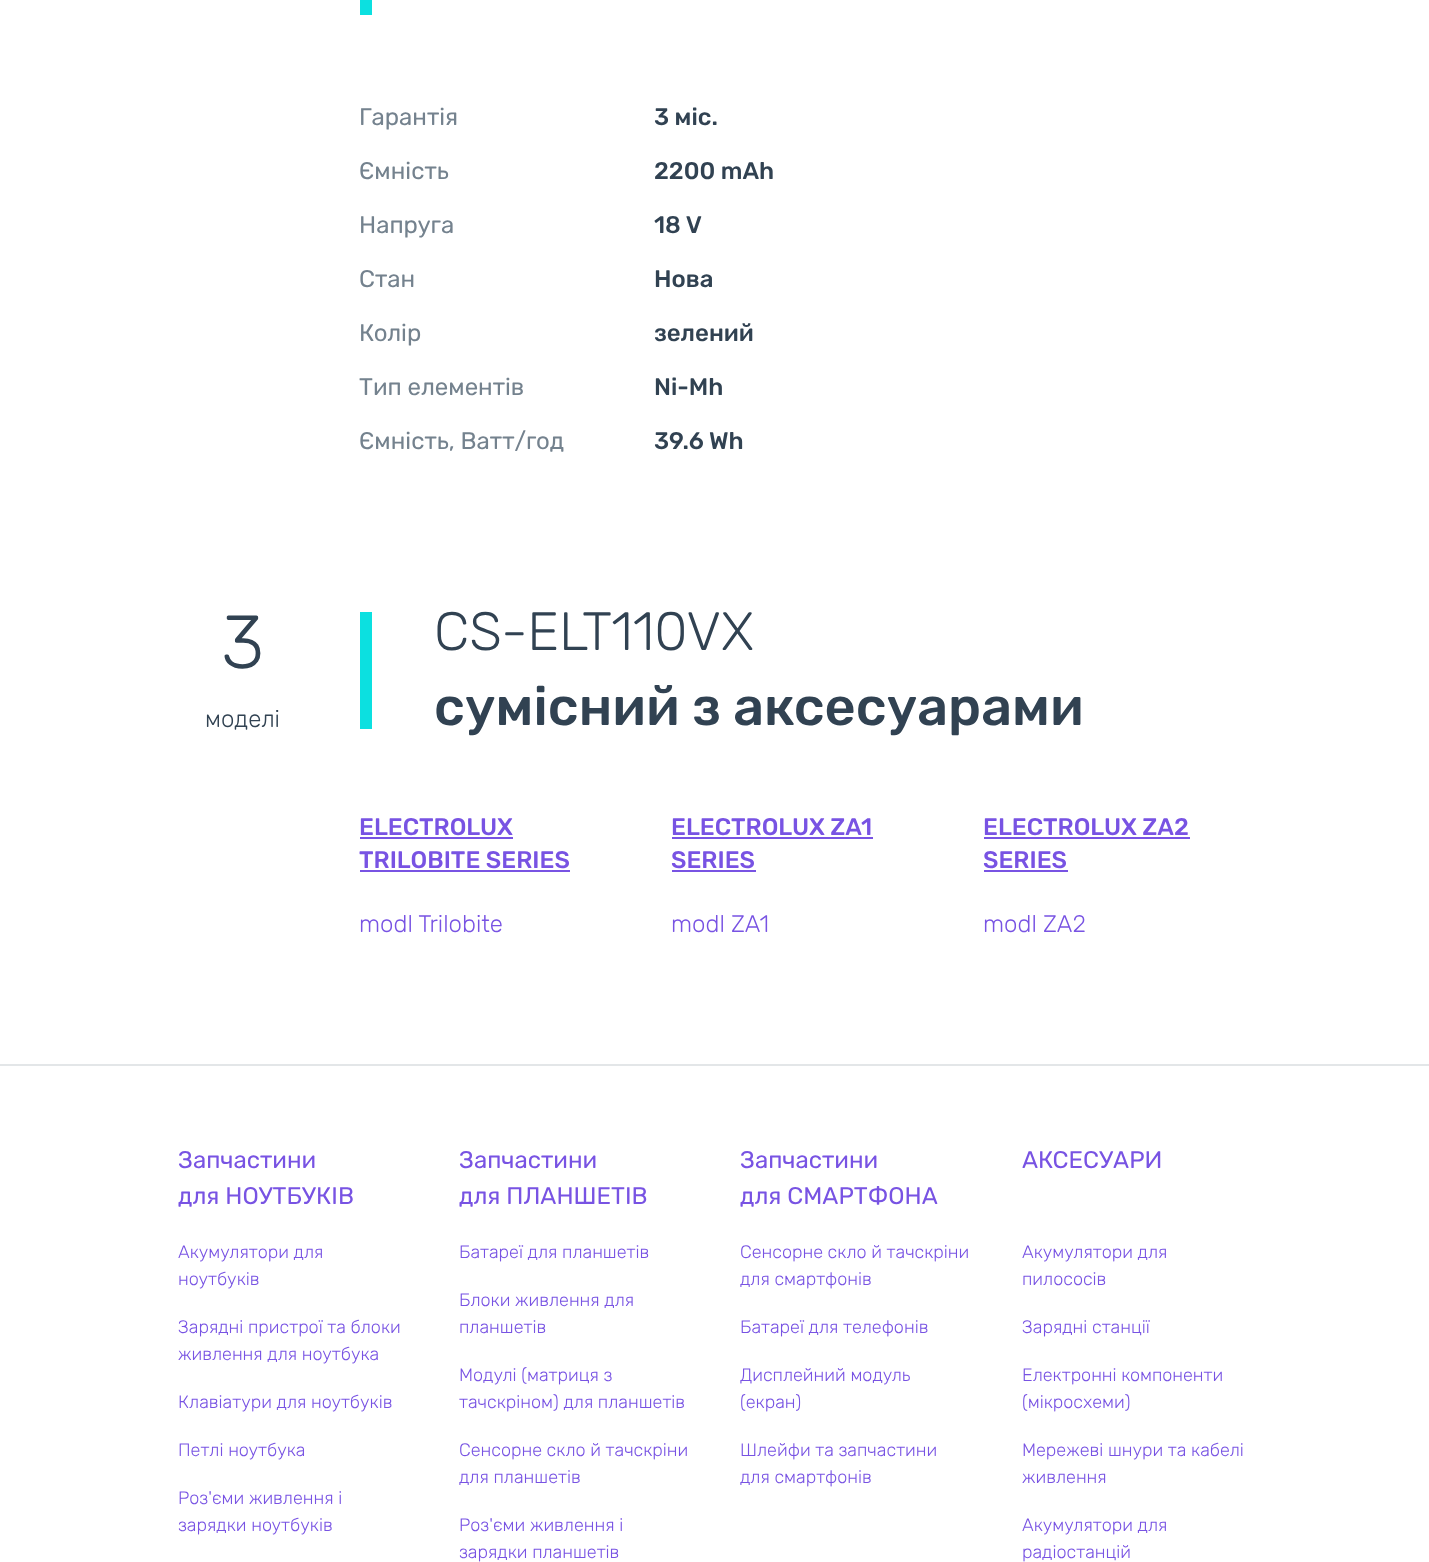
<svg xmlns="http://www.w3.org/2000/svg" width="1429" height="1562">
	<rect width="100%" height="100%" fill="#FFFFFF" />
	<rect x="360" y="0" width="12" height="15" fill="#0CE0E0" />
	<text x="359" y="125" font-family="Rubik" font-size="24" fill="#74828E">Гарантія</text>
	<text x="654" y="125" font-family="Rubik" font-size="24" font-weight="500" fill="#314252">3 міс.</text>
	<text x="359" y="179" font-family="Rubik" font-size="24" fill="#74828E">Ємність</text>
	<text x="654" y="179" font-family="Rubik" font-size="24" font-weight="500" fill="#314252">2200 mAh</text>
	<text x="359" y="233" font-family="Rubik" font-size="24" fill="#74828E">Напруга</text>
	<text x="654" y="233" font-family="Rubik" font-size="24" font-weight="500" fill="#314252">18 V</text>
	<text x="359" y="287" font-family="Rubik" font-size="24" fill="#74828E">Стан</text>
	<text x="654" y="287" font-family="Rubik" font-size="24" font-weight="500" fill="#314252">Нова</text>
	<text x="359" y="341" font-family="Rubik" font-size="24" fill="#74828E">Колір</text>
	<text x="654" y="341" font-family="Rubik" font-size="24" font-weight="500" fill="#314252">зелений</text>
	<text x="359" y="395" font-family="Rubik" font-size="24" fill="#74828E">Тип елементів</text>
	<text x="654" y="395" font-family="Rubik" font-size="24" font-weight="500" fill="#314252">Ni-Mh</text>
	<text x="359" y="449" font-family="Rubik" font-size="24" fill="#74828E">Ємність, Ватт/год</text>
	<text x="654" y="449" font-family="Rubik" font-size="24" font-weight="500" fill="#314252">39.6 Wh</text>
	<text x="221" y="668" font-family="Rubik" font-size="75" font-weight="300" fill="#314252">3</text>
	<text x="205" y="727" font-family="Rubik" font-size="24" font-weight="300" fill="#314252">моделі</text>
	<rect x="360" y="612" width="12" height="117" fill="#0CE0E0" />
	<text x="434" y="650" font-family="Rubik" font-size="54" font-weight="300" fill="#314252">CS-ELT110VX</text>
	<text x="434" y="725" font-family="Rubik" font-size="54" font-weight="500" fill="#314252">сумісний з аксесуарами</text>
	<text x="359" y="835" font-family="Rubik" font-size="24" font-weight="500" fill="#7853E3">ELECTROLUX</text>
	<rect x="360" y="837" width="153" height="2" fill="#7853E3" />
	<text x="359" y="868" font-family="Rubik" font-size="24" font-weight="500" fill="#7853E3">TRILOBITE SERIES</text>
	<rect x="360" y="870" width="210" height="2" fill="#7853E3" />
	<text x="359" y="932" font-family="Rubik" font-size="24" font-weight="300" fill="#7853E3">modl Trilobite</text>
	<text x="671" y="835" font-family="Rubik" font-size="24" font-weight="500" fill="#7853E3">ELECTROLUX ZA1</text>
	<rect x="672" y="837" width="201" height="2" fill="#7853E3" />
	<text x="671" y="868" font-family="Rubik" font-size="24" font-weight="500" fill="#7853E3">SERIES</text>
	<rect x="672" y="870" width="84" height="2" fill="#7853E3" />
	<text x="671" y="932" font-family="Rubik" font-size="24" font-weight="300" fill="#7853E3">modl ZA1</text>
	<text x="983" y="835" font-family="Rubik" font-size="24" font-weight="500" fill="#7853E3">ELECTROLUX ZA2</text>
	<rect x="984" y="837" width="206" height="2" fill="#7853E3" />
	<text x="983" y="868" font-family="Rubik" font-size="24" font-weight="500" fill="#7853E3">SERIES</text>
	<rect x="984" y="870" width="84" height="2" fill="#7853E3" />
	<text x="983" y="932" font-family="Rubik" font-size="24" font-weight="300" fill="#7853E3">modl ZA2</text>
	<rect x="0" y="1064" width="1429" height="2" fill="#E3E6E8" />
	<g font-family="Rubik" font-size="24" fill="#7853E3">
		<text x="178" y="1168">Запчастини</text>
		<text x="178" y="1204">для НОУТБУКІВ</text>
	</g>
	<g font-family="Rubik" font-size="18" font-weight="300" fill="#7853E3">
		<text x="178" y="1258">Акумулятори для</text>
		<text x="178" y="1285">ноутбуків</text>
		<text x="178" y="1333">Зарядні пристрої та блоки</text>
		<text x="178" y="1360">живлення для ноутбука</text>
		<text x="178" y="1408">Клавіатури для ноутбуків</text>
		<text x="178" y="1456">Петлі ноутбука</text>
		<text x="178" y="1504">Роз'єми живлення і</text>
		<text x="178" y="1531">зарядки ноутбуків</text>
	</g>
	<g font-family="Rubik" font-size="24" fill="#7853E3">
		<text x="459" y="1168">Запчастини</text>
		<text x="459" y="1204">для ПЛАНШЕТІВ</text>
	</g>
	<g font-family="Rubik" font-size="18" font-weight="300" fill="#7853E3">
		<text x="459" y="1258">Батареї для планшетів</text>
		<text x="459" y="1306">Блоки живлення для</text>
		<text x="459" y="1333">планшетів</text>
		<text x="459" y="1381">Модулі (матриця з</text>
		<text x="459" y="1408">тачскріном) для планшетів</text>
		<text x="459" y="1456">Сенсорне скло й тачскріни</text>
		<text x="459" y="1483">для планшетів</text>
		<text x="459" y="1531">Роз'єми живлення і</text>
		<text x="459" y="1558">зарядки планшетів</text>
	</g>
	<g font-family="Rubik" font-size="24" fill="#7853E3">
		<text x="740" y="1168">Запчастини</text>
		<text x="740" y="1204">для СМАРТФОНА</text>
	</g>
	<g font-family="Rubik" font-size="18" font-weight="300" fill="#7853E3">
		<text x="740" y="1258">Сенсорне скло й тачскріни</text>
		<text x="740" y="1285">для смартфонів</text>
		<text x="740" y="1333">Батареї для телефонів</text>
		<text x="740" y="1381">Дисплейний модуль</text>
		<text x="740" y="1408">(екран)</text>
		<text x="740" y="1456">Шлейфи та запчастини</text>
		<text x="740" y="1483">для смартфонів</text>
	</g>
	<text x="1022" y="1168" font-family="Rubik" font-size="24" fill="#7853E3">АКСЕСУАРИ</text>
	<g font-family="Rubik" font-size="18" font-weight="300" fill="#7853E3">
		<text x="1022" y="1258">Акумулятори для</text>
		<text x="1022" y="1285">пилососів</text>
		<text x="1022" y="1333">Зарядні станції</text>
		<text x="1022" y="1381">Електронні компоненти</text>
		<text x="1022" y="1408">(мікросхеми)</text>
		<text x="1022" y="1456">Мережеві шнури та кабелі</text>
		<text x="1022" y="1483">живлення</text>
		<text x="1022" y="1531">Акумулятори для</text>
		<text x="1022" y="1558">радіостанцій</text>
	</g>
</svg>
